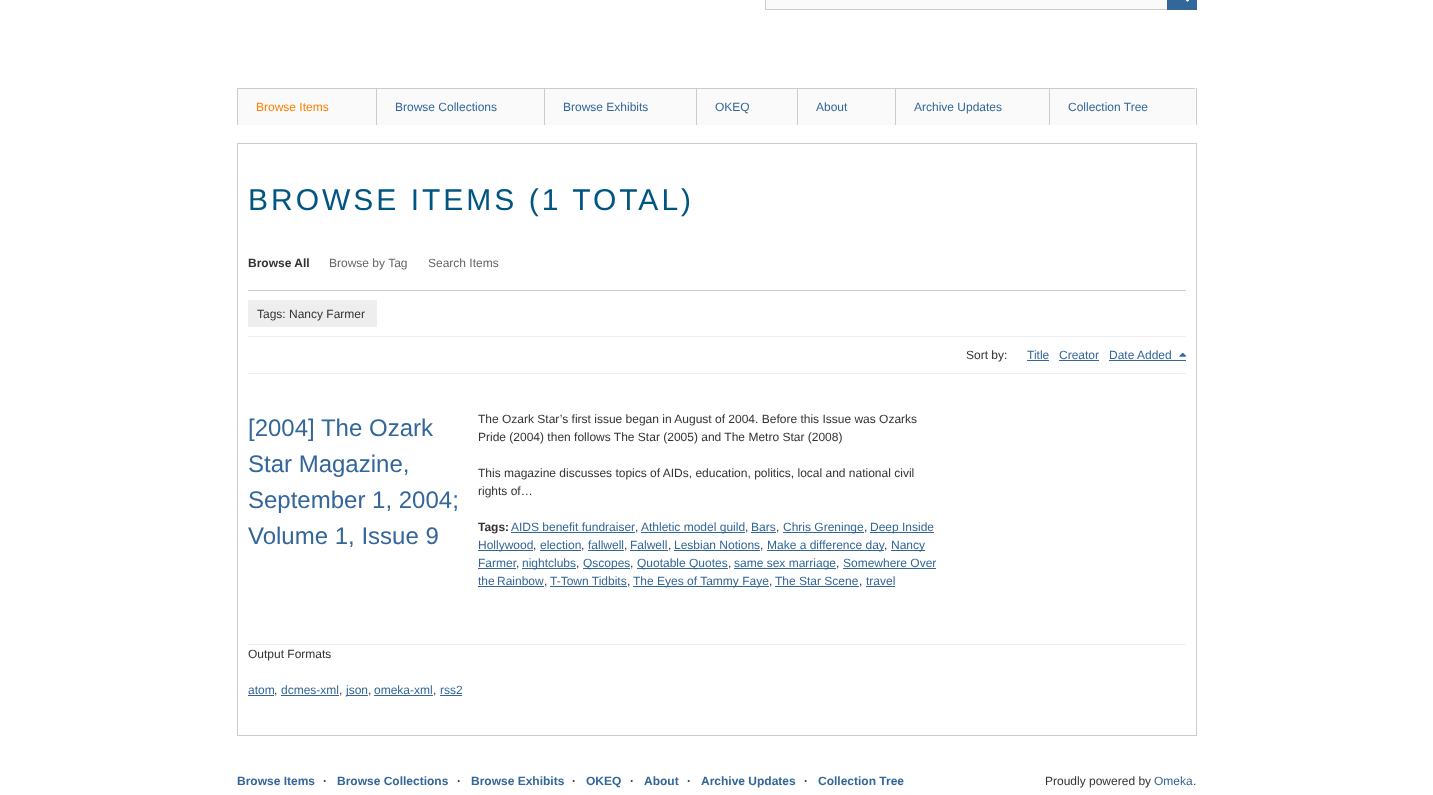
<svg xmlns="http://www.w3.org/2000/svg" width="1433" height="795">
	<rect width="100%" height="100%" fill="#FFFFFF" />
	<rect x="766" y="0" width="401" height="9" fill="#FAFAFA" />
	<rect x="765.5" y="-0.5" width="431" height="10" fill="none" stroke="#CCCCCC" />
	<rect x="1167" y="0" width="30" height="10" fill="#336699" />
	<image x="1185" y="0" width="4" height="2" href="assets/img1.png" />
	<rect x="1196" y="88" width="1" height="37" fill="#CCCCCC" />
	<rect x="238" y="89" width="138" height="36" fill="#FAFAFA" />
	<rect x="237" y="88" width="958" height="1" fill="#CCCCCC" />
	<rect x="237" y="88" width="1" height="37" fill="#CCCCCC" />
	<text x="256" y="111" font-family="Liberation Sans" font-size="12" fill="#FF8000">Browse Items</text>
	<rect x="377" y="89" width="167" height="36" fill="#FAFAFA" />
	<rect x="376" y="88" width="1" height="37" fill="#CCCCCC" />
	<text x="395" y="111" font-family="Liberation Sans" font-size="12" fill="#336699">Browse Collections</text>
	<rect x="545" y="89" width="151" height="36" fill="#FAFAFA" />
	<rect x="544" y="88" width="1" height="37" fill="#CCCCCC" />
	<text x="563" y="111" font-family="Liberation Sans" font-size="12" fill="#336699">Browse Exhibits</text>
	<rect x="697" y="89" width="100" height="36" fill="#FAFAFA" />
	<rect x="696" y="88" width="1" height="37" fill="#CCCCCC" />
	<text x="715" y="111" font-family="Liberation Sans" font-size="12" fill="#336699">OKEQ</text>
	<rect x="798" y="89" width="97" height="36" fill="#FAFAFA" />
	<rect x="797" y="88" width="1" height="37" fill="#CCCCCC" />
	<text x="816" y="111" font-family="Liberation Sans" font-size="12" fill="#336699">About</text>
	<rect x="896" y="89" width="153" height="36" fill="#FAFAFA" />
	<rect x="895" y="88" width="1" height="37" fill="#CCCCCC" />
	<text x="914" y="111" font-family="Liberation Sans" font-size="12" fill="#336699">Archive Updates</text>
	<rect x="1050" y="89" width="145" height="36" fill="#FAFAFA" />
	<rect x="1049" y="88" width="1" height="37" fill="#CCCCCC" />
	<text x="1068" y="111" font-family="Liberation Sans" font-size="12" fill="#336699">Collection Tree</text>
	<rect x="237.5" y="143.5" width="959" height="592" fill="none" stroke="#CCCCCC" />
	<text x="248" y="210" font-family="Liberation Sans" font-size="30" letter-spacing="3" fill="#015581">BROWSE ITEMS (1 TOTAL)</text>
	<rect x="248" y="290" width="938" height="1" fill="#CCCCCC" />
	<text x="248" y="267" font-family="Liberation Sans" font-size="12" font-weight="700" fill="#333333">Browse All</text>
	<g font-family="Liberation Sans" font-size="12" fill="#666666">
		<text x="329" y="267">Browse by Tag</text>
		<text x="428" y="267">Search Items</text>
	</g>
	<rect x="248" y="336" width="938" height="1" fill="#EEEEEE" />
	<rect x="248" y="300" width="129" height="27" fill="#EEEEEE" />
	<g font-family="Liberation Sans" font-size="12" fill="#333333">
		<text x="257" y="318">Tags: Nancy Farmer</text>
		<text x="966" y="359">Sort by:</text>
	</g>
	<text x="1027" y="359" font-family="Liberation Sans" font-size="12" fill="#336699">Title</text>
	<rect x="1027" y="360" width="22" height="1" fill="#336699" />
	<text x="1059" y="359" font-family="Liberation Sans" font-size="12" fill="#336699">Creator</text>
	<rect x="1059" y="360" width="40" height="1" fill="#336699" />
	<text x="1109" y="359" font-family="Liberation Sans" font-size="12" fill="#336699">Date Added</text>
	<rect x="1109" y="360" width="77" height="1" fill="#336699" />
	<image x="1179" y="352" width="8" height="5" href="assets/img2.png" />
	<rect x="248" y="373" width="938" height="1" fill="#EEEEEE" />
	<rect x="248" y="644" width="938" height="1" fill="#EEEEEE" />
	<g font-family="Liberation Sans" font-size="24" fill="#336699">
		<text x="248" y="436">[2004] The Ozark</text>
		<text x="248" y="472">Star Magazine,</text>
		<text x="248" y="508">September 1, 2004;</text>
		<text x="248" y="544">Volume 1, Issue 9</text>
	</g>
	<g font-family="Liberation Sans" font-size="12" fill="#333333">
		<text x="478" y="423">The Ozark Star’s first issue began in August of 2004. Before this Issue was Ozarks</text>
		<text x="478" y="441">Pride (2004) then follows The Star (2005) and The Metro Star (2008)</text>
		<text x="478" y="477">This magazine discusses topics of AIDs, education, politics, local and national civil</text>
		<text x="478" y="495">rights of…</text>
	</g>
	<text x="478" y="531" font-family="Liberation Sans" font-size="12" font-weight="700" fill="#333333">Tags:</text>
	<text x="511" y="531" font-family="Liberation Sans" font-size="12" fill="#336699">AIDS benefit fundraiser</text>
	<rect x="511" y="532" width="124" height="1" fill="#336699" />
	<text x="635" y="531" font-family="Liberation Sans" font-size="12" fill="#333333">,</text>
	<rect x="641" y="532" width="104" height="1" fill="#336699" />
	<text x="641" y="531" font-family="Liberation Sans" font-size="12" fill="#336699">Athletic model guild</text>
	<text x="745" y="531" font-family="Liberation Sans" font-size="12" fill="#333333">,</text>
	<text x="751" y="531" font-family="Liberation Sans" font-size="12" fill="#336699">Bars</text>
	<rect x="751" y="532" width="25" height="1" fill="#336699" />
	<text x="776" y="531" font-family="Liberation Sans" font-size="12" fill="#333333">,</text>
	<rect x="783" y="532" width="81" height="1" fill="#336699" />
	<text x="783" y="531" font-family="Liberation Sans" font-size="12" fill="#336699">Chris Greninge</text>
	<text x="864" y="531" font-family="Liberation Sans" font-size="12" fill="#333333">,</text>
	<rect x="870" y="532" width="64" height="1" fill="#336699" />
	<text x="870" y="531" font-family="Liberation Sans" font-size="12" fill="#336699">Deep Inside</text>
	<rect x="478" y="550" width="55" height="1" fill="#336699" />
	<text x="478" y="549" font-family="Liberation Sans" font-size="12" fill="#336699">Hollywood</text>
	<text x="533" y="549" font-family="Liberation Sans" font-size="12" fill="#333333">,</text>
	<text x="540" y="549" font-family="Liberation Sans" font-size="12" fill="#336699">election</text>
	<rect x="540" y="550" width="41" height="1" fill="#336699" />
	<text x="581" y="549" font-family="Liberation Sans" font-size="12" fill="#333333">,</text>
	<text x="588" y="549" font-family="Liberation Sans" font-size="12" fill="#336699">fallwell</text>
	<rect x="588" y="550" width="36" height="1" fill="#336699" />
	<text x="624" y="549" font-family="Liberation Sans" font-size="12" fill="#333333">,</text>
	<text x="630" y="549" font-family="Liberation Sans" font-size="12" fill="#336699">Falwell</text>
	<rect x="630" y="550" width="38" height="1" fill="#336699" />
	<text x="668" y="549" font-family="Liberation Sans" font-size="12" fill="#333333">,</text>
	<text x="674" y="549" font-family="Liberation Sans" font-size="12" fill="#336699">Lesbian Notions</text>
	<rect x="674" y="550" width="86" height="1" fill="#336699" />
	<text x="760" y="549" font-family="Liberation Sans" font-size="12" fill="#333333">,</text>
	<rect x="767" y="550" width="117" height="1" fill="#336699" />
	<text x="767" y="549" font-family="Liberation Sans" font-size="12" fill="#336699">Make a difference day</text>
	<text x="884" y="549" font-family="Liberation Sans" font-size="12" fill="#333333">,</text>
	<rect x="891" y="550" width="34" height="1" fill="#336699" />
	<g font-family="Liberation Sans" font-size="12" fill="#336699">
		<text x="891" y="549">Nancy</text>
		<text x="478" y="567">Farmer</text>
	</g>
	<rect x="478" y="568" width="38" height="1" fill="#336699" />
	<text x="516" y="567" font-family="Liberation Sans" font-size="12" fill="#333333">,</text>
	<rect x="522" y="568" width="54" height="1" fill="#336699" />
	<text x="522" y="567" font-family="Liberation Sans" font-size="12" fill="#336699">nightclubs</text>
	<text x="576" y="567" font-family="Liberation Sans" font-size="12" fill="#333333">,</text>
	<rect x="583" y="568" width="47" height="1" fill="#336699" />
	<text x="583" y="567" font-family="Liberation Sans" font-size="12" fill="#336699">Qscopes</text>
	<text x="630" y="567" font-family="Liberation Sans" font-size="12" fill="#333333">,</text>
	<rect x="637" y="568" width="91" height="1" fill="#336699" />
	<text x="637" y="567" font-family="Liberation Sans" font-size="12" fill="#336699">Quotable Quotes</text>
	<text x="728" y="567" font-family="Liberation Sans" font-size="12" fill="#333333">,</text>
	<rect x="734" y="568" width="102" height="1" fill="#336699" />
	<text x="734" y="567" font-family="Liberation Sans" font-size="12" fill="#336699">same sex marriage</text>
	<text x="836" y="567" font-family="Liberation Sans" font-size="12" fill="#333333">,</text>
	<text x="843" y="567" font-family="Liberation Sans" font-size="12" fill="#336699">Somewhere Over</text>
	<rect x="843" y="568" width="93" height="1" fill="#336699" />
	<text x="478" y="585" word-spacing="-1" font-family="Liberation Sans" font-size="12" fill="#336699">the Rainbow</text>
	<rect x="478" y="586" width="66" height="1" fill="#336699" />
	<text x="544" y="585" font-family="Liberation Sans" font-size="12" fill="#333333">,</text>
	<text x="550" y="585" font-family="Liberation Sans" font-size="12" fill="#336699">T-Town Tidbits</text>
	<rect x="550" y="586" width="77" height="1" fill="#336699" />
	<text x="627" y="585" font-family="Liberation Sans" font-size="12" fill="#333333">,</text>
	<rect x="633" y="586" width="136" height="1" fill="#336699" />
	<text x="633" y="585" font-family="Liberation Sans" font-size="12" fill="#336699">The Eyes of Tammy Faye</text>
	<text x="769" y="585" font-family="Liberation Sans" font-size="12" fill="#333333">,</text>
	<text x="775" y="585" font-family="Liberation Sans" font-size="12" fill="#336699">The Star Scene</text>
	<rect x="775" y="586" width="84" height="1" fill="#336699" />
	<text x="859" y="585" font-family="Liberation Sans" font-size="12" fill="#333333">,</text>
	<text x="866" y="585" font-family="Liberation Sans" font-size="12" fill="#336699">travel</text>
	<rect x="866" y="586" width="29" height="1" fill="#336699" />
	<text x="248" y="658" font-family="Liberation Sans" font-size="12" fill="#333333">Output Formats</text>
	<text x="248" y="694" font-family="Liberation Sans" font-size="12" fill="#336699">atom</text>
	<rect x="248" y="695" width="26" height="1" fill="#336699" />
	<text x="274" y="694" font-family="Liberation Sans" font-size="12" fill="#333333">,</text>
	<text x="281" y="694" font-family="Liberation Sans" font-size="12" fill="#336699">dcmes-xml</text>
	<rect x="281" y="695" width="58" height="1" fill="#336699" />
	<text x="339" y="694" font-family="Liberation Sans" font-size="12" fill="#333333">,</text>
	<rect x="346" y="695" width="22" height="1" fill="#336699" />
	<text x="346" y="694" font-family="Liberation Sans" font-size="12" fill="#336699">json</text>
	<text x="368" y="694" font-family="Liberation Sans" font-size="12" fill="#333333">,</text>
	<text x="374" y="694" font-family="Liberation Sans" font-size="12" fill="#336699">omeka-xml</text>
	<rect x="374" y="695" width="59" height="1" fill="#336699" />
	<text x="433" y="694" font-family="Liberation Sans" font-size="12" fill="#333333">,</text>
	<text x="440" y="694" font-family="Liberation Sans" font-size="12" fill="#336699">rss2</text>
	<rect x="440" y="695" width="22" height="1" fill="#336699" />
	<text x="237" y="785" font-family="Liberation Sans" font-size="12" font-weight="700" fill="#336699">Browse Items</text>
	<text x="323" y="785" font-family="Liberation Sans" font-size="12" font-weight="700" fill="#333333">·</text>
	<text x="337" y="785" font-family="Liberation Sans" font-size="12" font-weight="700" fill="#336699">Browse Collections</text>
	<text x="457" y="785" font-family="Liberation Sans" font-size="12" font-weight="700" fill="#333333">·</text>
	<text x="471" y="785" font-family="Liberation Sans" font-size="12" font-weight="700" fill="#336699">Browse Exhibits</text>
	<text x="572" y="785" font-family="Liberation Sans" font-size="12" font-weight="700" fill="#333333">·</text>
	<text x="586" y="785" font-family="Liberation Sans" font-size="12" font-weight="700" fill="#336699">OKEQ</text>
	<text x="630" y="785" font-family="Liberation Sans" font-size="12" font-weight="700" fill="#333333">·</text>
	<text x="644" y="785" font-family="Liberation Sans" font-size="12" font-weight="700" fill="#336699">About</text>
	<text x="687" y="785" font-family="Liberation Sans" font-size="12" font-weight="700" fill="#333333">·</text>
	<text x="701" y="785" font-family="Liberation Sans" font-size="12" font-weight="700" fill="#336699">Archive Updates</text>
	<text x="804" y="785" font-family="Liberation Sans" font-size="12" font-weight="700" fill="#333333">·</text>
	<text x="818" y="785" font-family="Liberation Sans" font-size="12" font-weight="700" fill="#336699">Collection Tree</text>
	<text x="1045" y="785" font-family="Liberation Sans" font-size="12" fill="#333333">Proudly powered by</text>
	<text x="1154" y="785" font-family="Liberation Sans" font-size="12" fill="#336699">Omeka</text>
	<text x="1193" y="785" font-family="Liberation Sans" font-size="12" fill="#333333">.</text>
</svg>
